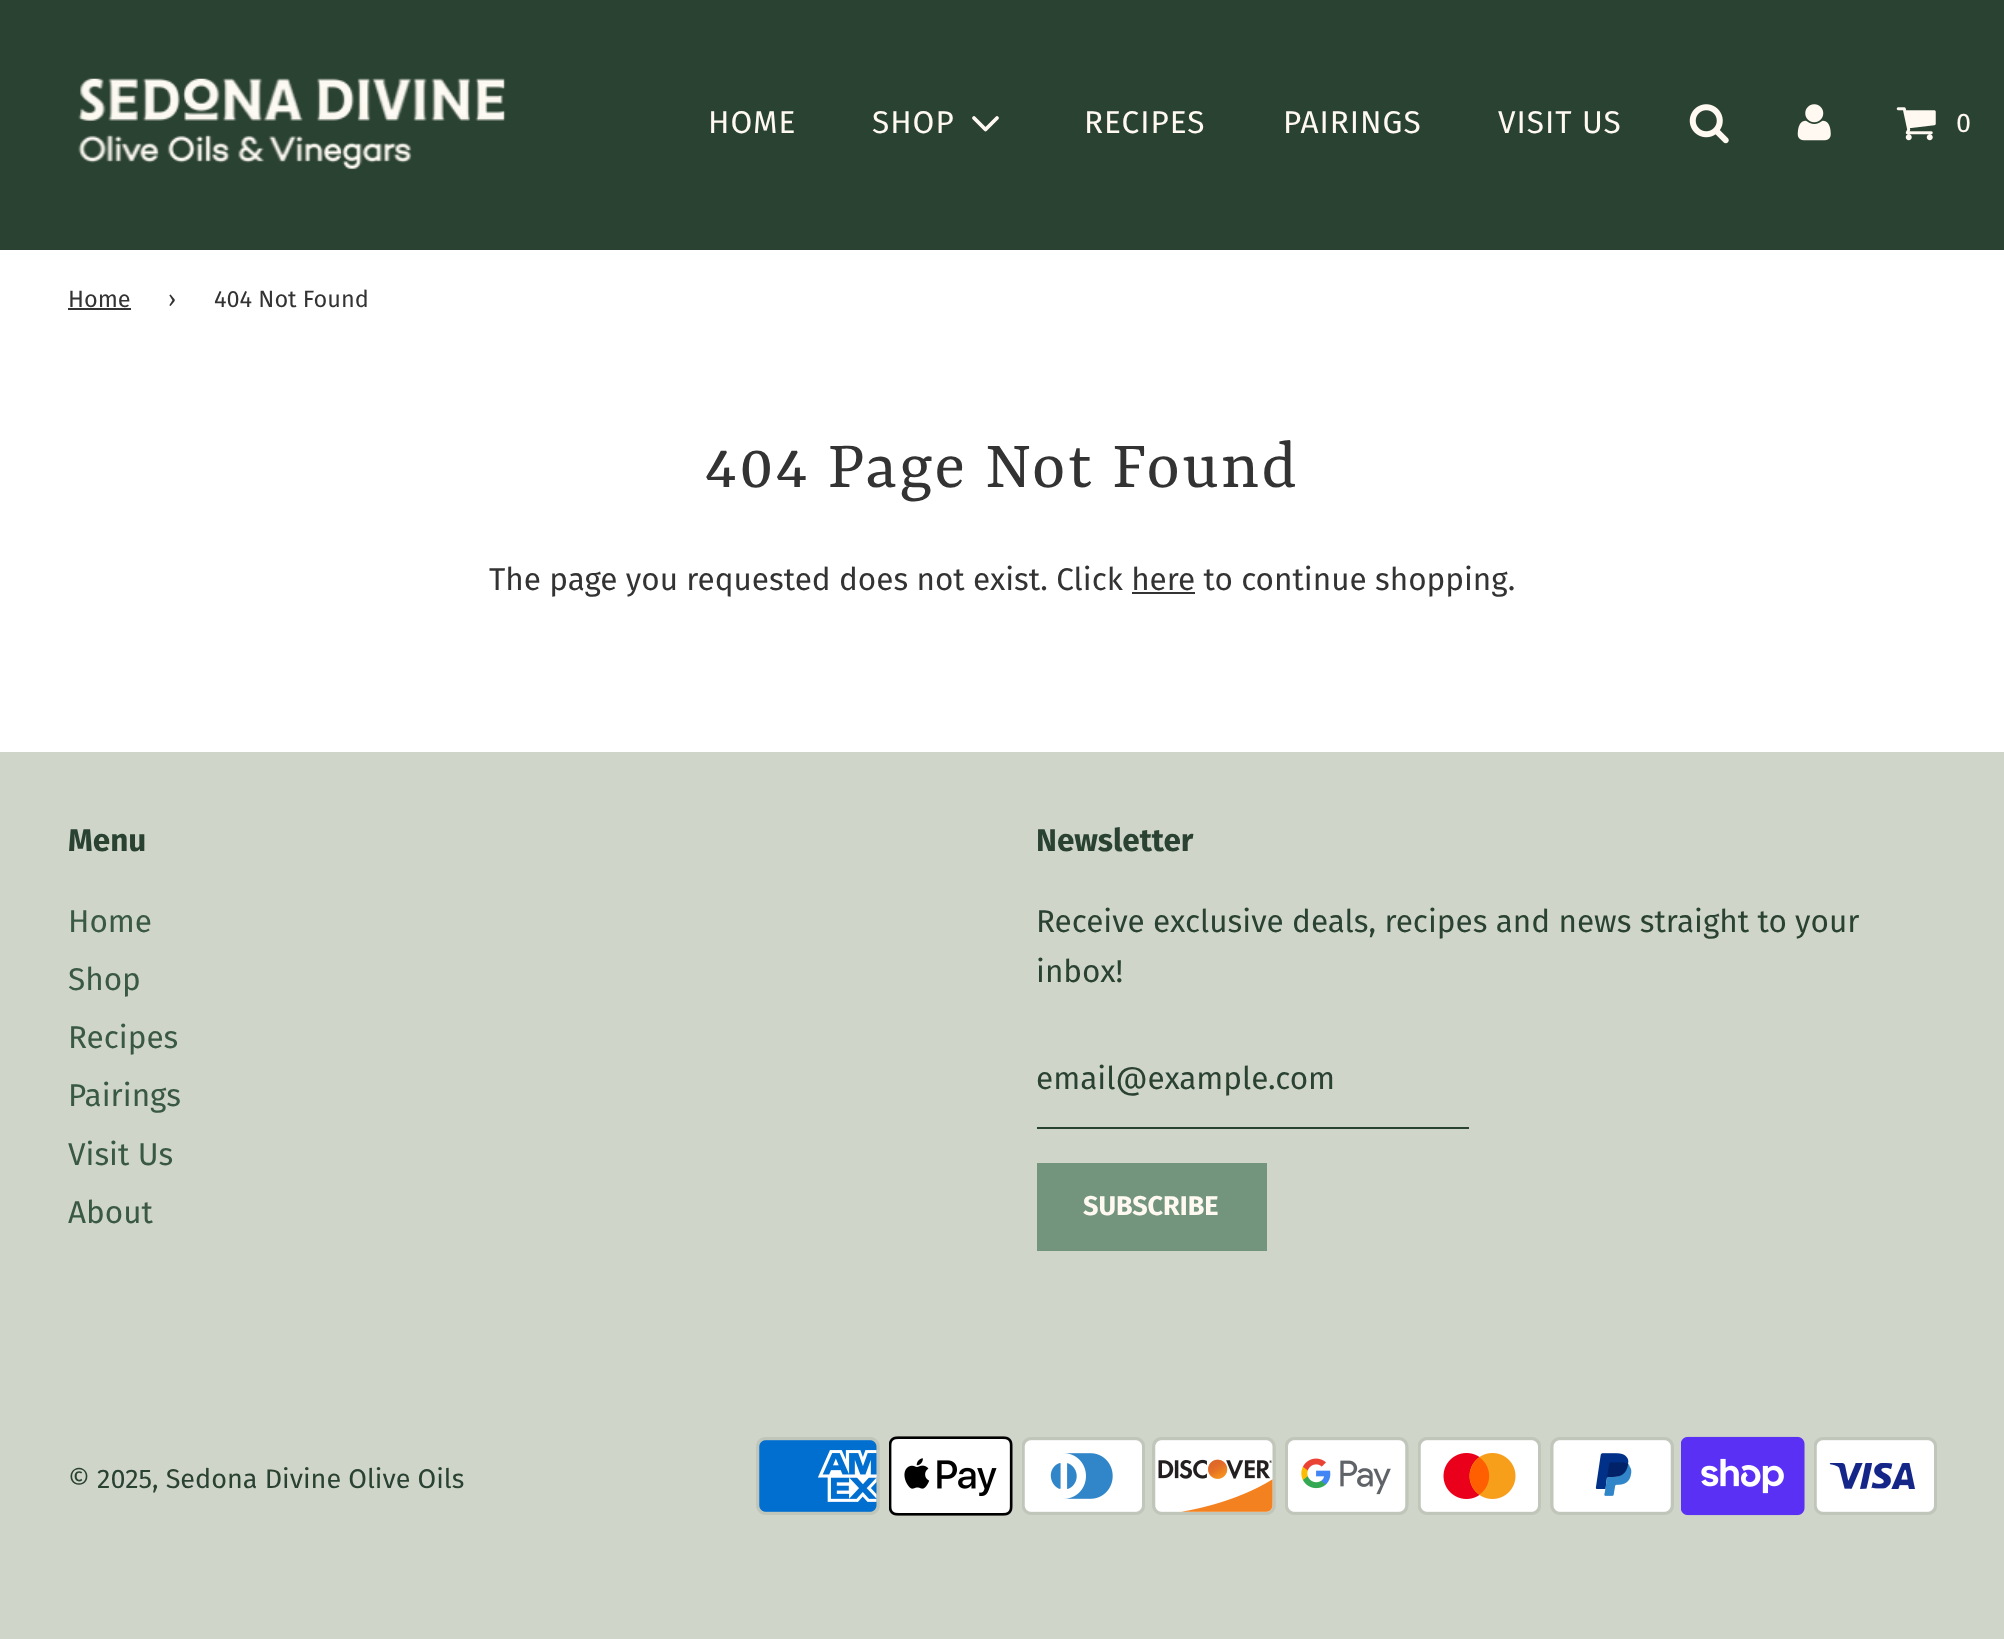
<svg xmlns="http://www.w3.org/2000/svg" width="2004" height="1639">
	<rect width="100%" height="100%" fill="#FFFFFF" />
	<rect x="0" y="0" width="2004" height="250" fill="#2A4232" />
	<image x="78" y="78" width="428" height="92" href="assets/img1.png" />
	<g font-family="Fira Sans" font-size="31.5" letter-spacing="1" fill="#FFF9F1">
		<text x="708" y="133">HOME</text>
		<text x="872" y="133">SHOP</text>
	</g>
	<path d="M974 118L985.5 129.5L997 118" fill="none" stroke="#FFF9F1" stroke-width="3.8" stroke-linecap="round" stroke-linejoin="round" />
	<g font-family="Fira Sans" font-size="31.5" letter-spacing="1" fill="#FFF9F1">
		<text x="1084" y="133">RECIPES</text>
		<text x="1283" y="133">PAIRINGS</text>
		<text x="1498" y="133">VISIT US</text>
	</g>
	<image x="1689" y="104" width="40" height="40" href="assets/img2.png" />
	<image x="1797" y="104" width="34" height="37" href="assets/img3.png" />
	<image x="1896" y="107" width="40" height="34" href="assets/img4.png" />
	<text x="1956" y="132" font-family="Fira Sans" font-size="27" fill="#FFF9F1">0</text>
	<text x="68" y="307" font-family="Fira Sans" font-size="23.5" fill="#333333">Home</text>
	<rect x="68" y="308" width="63" height="2" fill="#333333" />
	<g font-family="Fira Sans" font-size="23.5" fill="#333333">
		<text x="168" y="307">›</text>
		<text x="214" y="307">404 Not Found</text>
	</g>
	<text x="705" y="487" font-family="Yrsa" font-size="72" letter-spacing="2.25" fill="#333333">404 Page Not Found</text>
	<text x="489" y="590" font-family="Fira Sans" font-size="31.5" fill="#333333">The page you requested does not exist. Click here to continue shopping.</text>
	<rect x="1132" y="592" width="63" height="2" fill="#333333" />
	<rect x="0" y="752" width="2004" height="887" fill="#D0D5CA" />
	<text x="68" y="851" font-family="Fira Sans" font-size="31.5" font-weight="700" fill="#2A4232">Menu</text>
	<g font-family="Fira Sans" font-size="31.5" fill="#395944">
		<text x="68" y="932">Home</text>
		<text x="68" y="990">Shop</text>
		<text x="68" y="1048">Recipes</text>
		<text x="68" y="1106">Pairings</text>
		<text x="68" y="1165">Visit Us</text>
		<text x="68" y="1223">About</text>
	</g>
	<text x="1036" y="851" font-family="Fira Sans" font-size="31.5" font-weight="700" fill="#2A4232">Newsletter</text>
	<g font-family="Fira Sans" font-size="31.5" fill="#2A4232">
		<text x="1036" y="932">Receive exclusive deals, recipes and news straight to your</text>
		<text x="1036" y="982">inbox!</text>
	</g>
	<rect x="1037" y="1127" width="432" height="2" fill="#2A4232" />
	<text x="1036" y="1089" font-family="Fira Sans" font-size="31.5" fill="#2A4232">email@example.com</text>
	<rect x="1037" y="1163" width="230" height="88" fill="#73957D" />
	<text x="1083" y="1215" font-family="Fira Sans" font-size="27" font-weight="700" fill="#FFF9F1">SUBSCRIBE</text>
	<text x="68" y="1488" font-family="Fira Sans" font-size="27" fill="#2A4232">© 2025, Sedona Divine Olive Oils</text>
	<image x="756" y="1437" width="124" height="78" href="assets/img5.png" />
	<image x="889" y="1436" width="124" height="80" href="assets/img6.png" />
	<image x="1022" y="1437" width="123" height="78" href="assets/img7.png" />
	<image x="1152" y="1437" width="124" height="78" href="assets/img8.png" />
	<image x="1285" y="1437" width="124" height="78" href="assets/img9.png" />
	<image x="1418" y="1437" width="123" height="78" href="assets/img10.png" />
	<image x="1550" y="1437" width="124" height="78" href="assets/img11.png" />
	<image x="1681" y="1436" width="124" height="80" href="assets/img12.png" />
	<image x="1814" y="1437" width="123" height="78" href="assets/img13.png" />
</svg>
